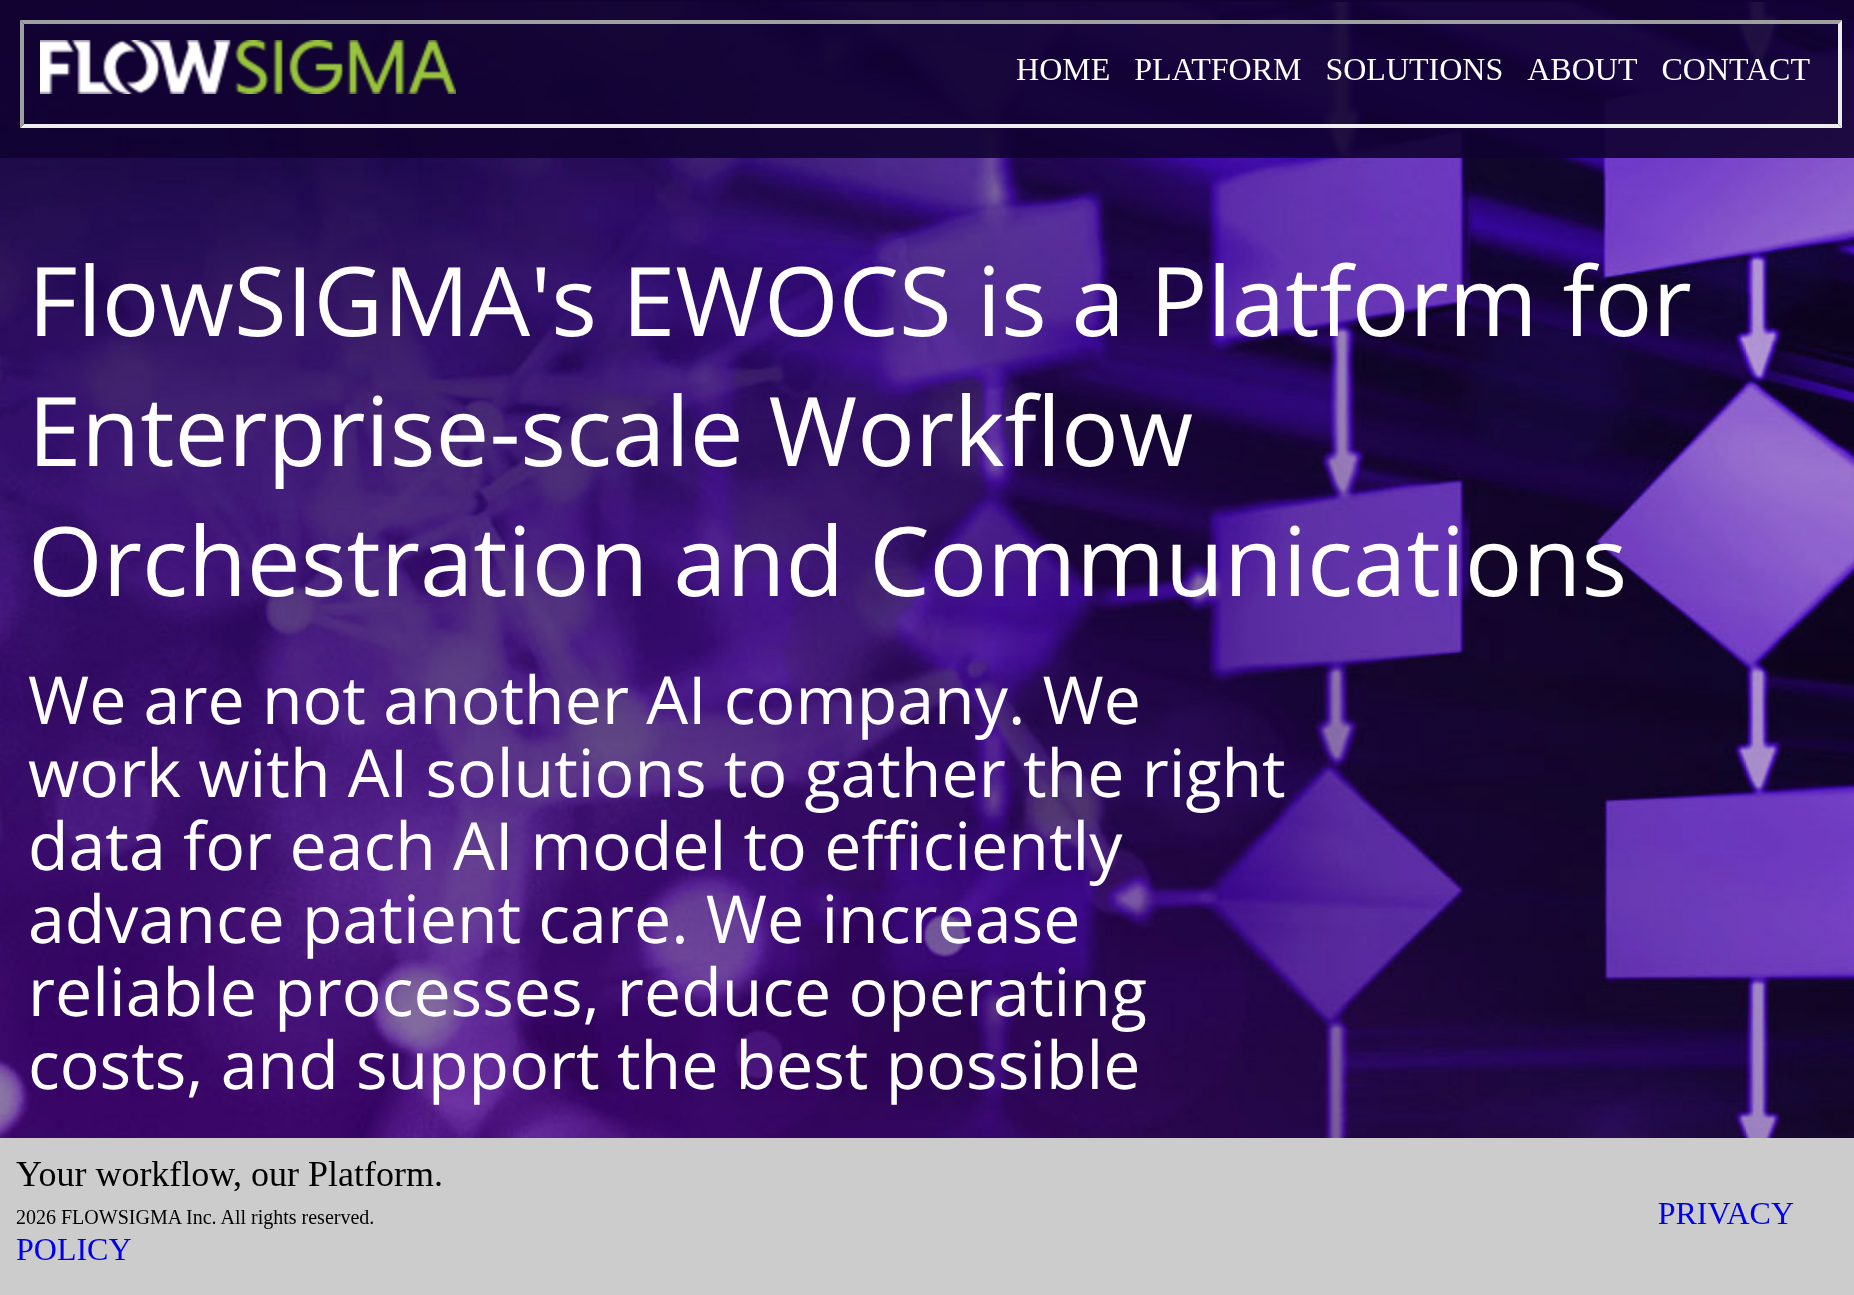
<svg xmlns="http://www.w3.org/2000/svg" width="1854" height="1295">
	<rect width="100%" height="100%" fill="#110231" />
	<image x="0" y="2" width="1854" height="1136" href="assets/img2.png" />
	<rect x="0" y="2" width="1854" height="156" fill="#110231" fill-opacity="0.9" />
	<path d="M20 20H1842L1838 24H24Z" fill="#9F9F9F" />
	<path d="M1842 20V128L1838 124V24Z" fill="#EEEEEE" />
	<path d="M1842 128H20L24 124H1838Z" fill="#EEEEEE" />
	<path d="M20 128V20L24 24V124Z" fill="#9F9F9F" />
	<image x="40" y="40" width="1770" height="54" href="assets/img1.png" />
	<g font-family="Open Sans" font-size="96" fill="#FFFFFF">
		<text x="28" y="336">FlowSIGMA's EWOCS is a Platform for</text>
		<text x="28" y="466">Enterprise-scale Workflow</text>
		<text x="28" y="596">Orchestration and Communications</text>
	</g>
	<g font-family="Open Sans" font-size="66.25" fill="#FFFFFF">
		<text x="28" y="724">We are not another AI company. We</text>
		<text x="28" y="797">work with AI solutions to gather the right</text>
		<text x="28" y="870">data for each AI model to efficiently</text>
		<text x="28" y="943">advance patient care. We increase</text>
		<text x="28" y="1016">reliable processes, reduce operating</text>
		<text x="28" y="1089">costs, and support the best possible</text>
	</g>
	<rect x="0" y="1138" width="1854" height="157" fill="#CCCCCC" />
	<image x="16" y="1161" width="1778" height="99" href="assets/img3.png" />
</svg>
